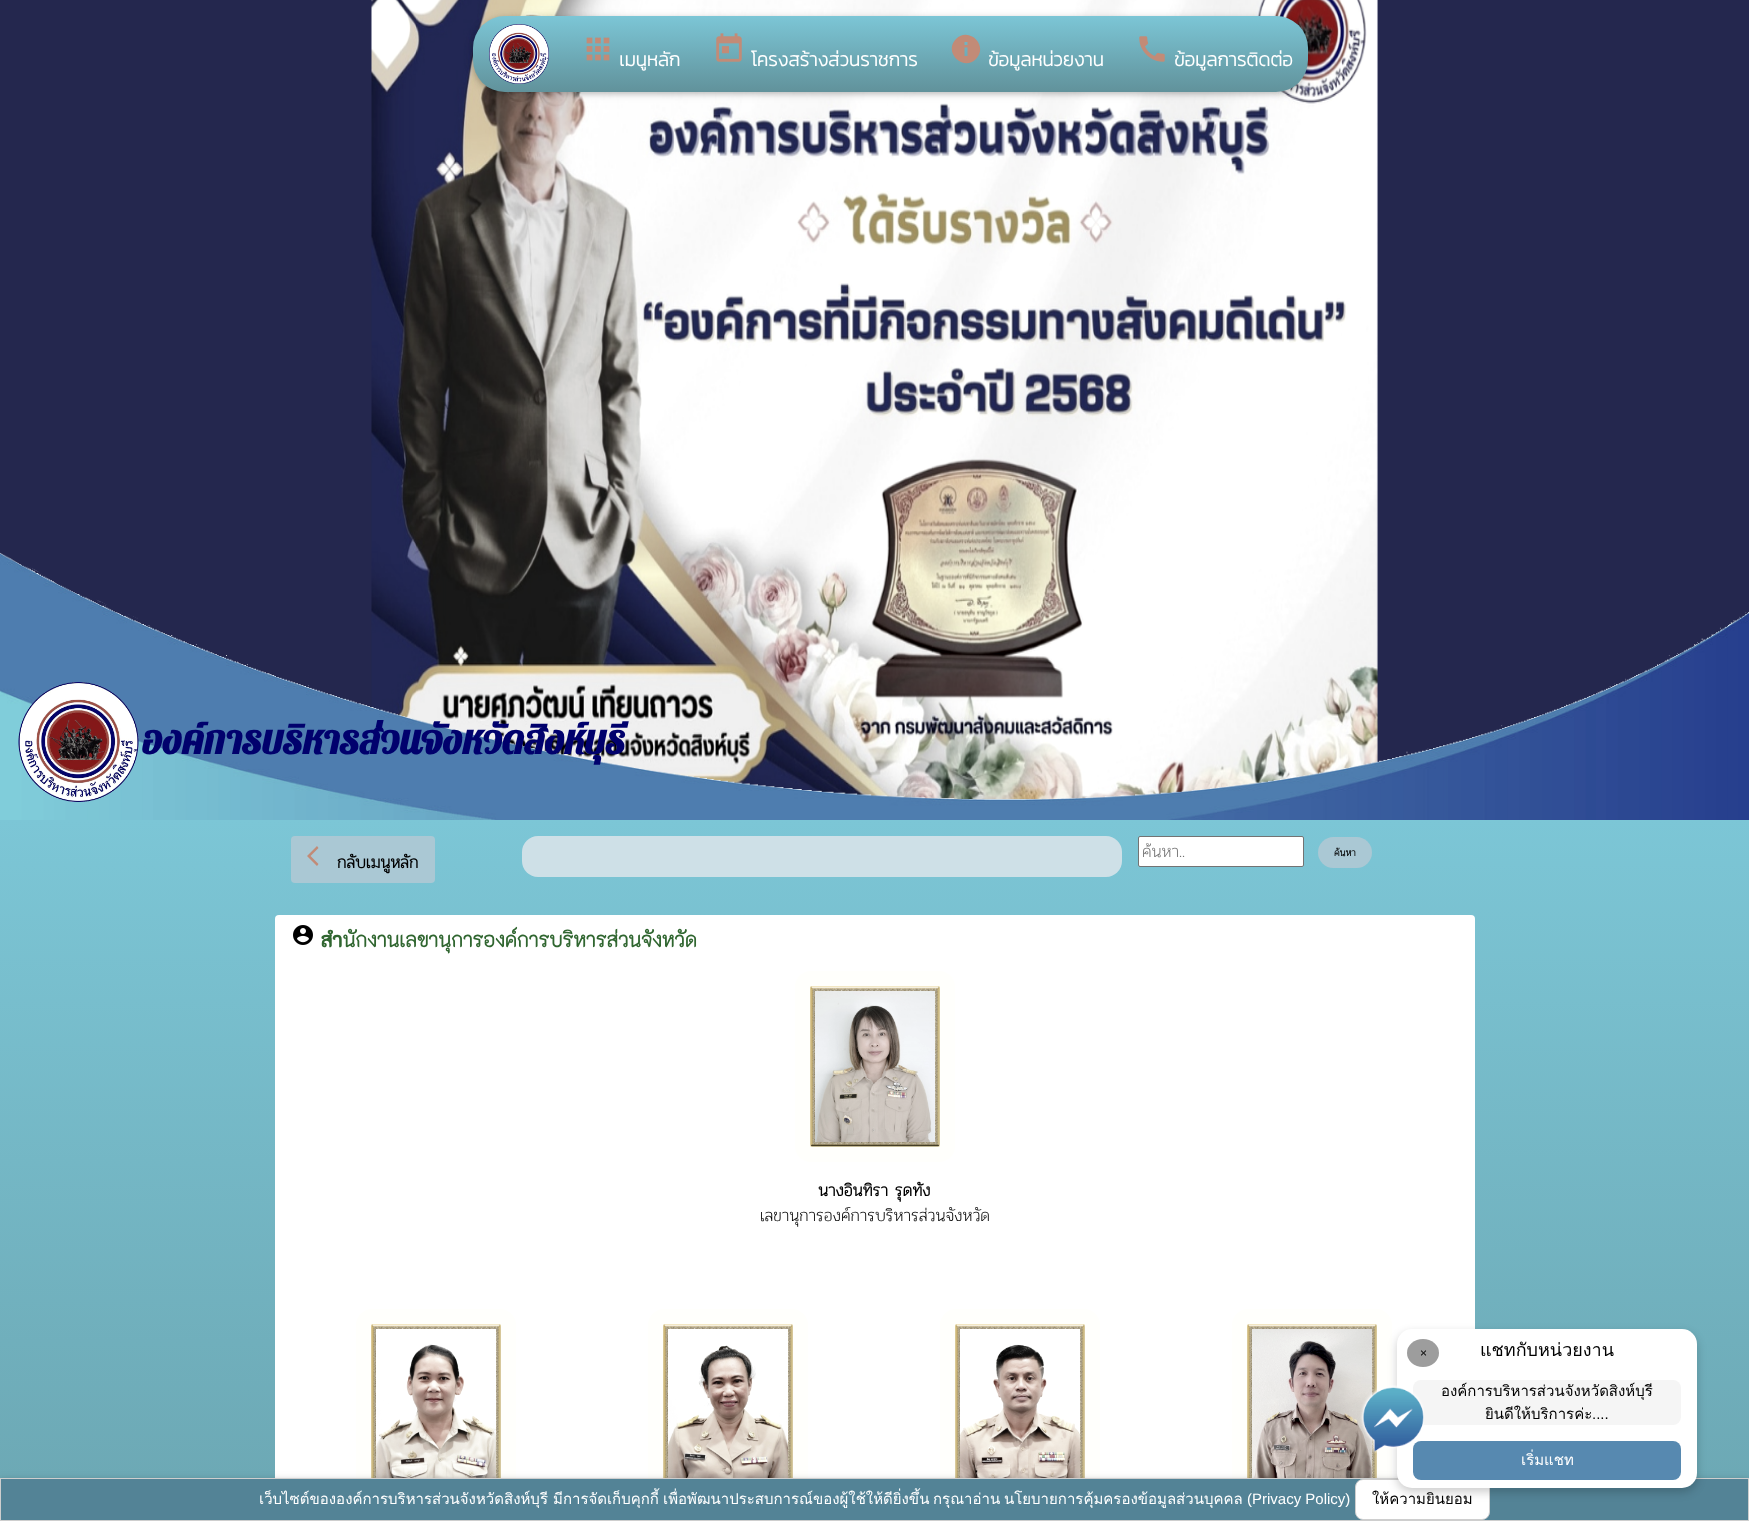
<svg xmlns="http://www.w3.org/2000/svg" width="1749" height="1521">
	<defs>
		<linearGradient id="g1" gradientUnits="userSpaceOnUse" x1="891" y1="16" x2="891" y2="92"><stop offset="0" stop-color="#7CC6D6" /><stop offset="1" stop-color="#61929B" /></linearGradient>
		<linearGradient id="g2" gradientUnits="userSpaceOnUse" x1="874" y1="820" x2="875" y2="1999"><stop offset="0" stop-color="#7CC6D6" /><stop offset="1" stop-color="#61929B" /></linearGradient>
		<clipPath id="clip1"><rect x="1142" y="837" width="158" height="28" /></clipPath>
	</defs>
	<rect width="100%" height="100%" fill="#FFFFFF" />
	<image x="0" y="0" width="1749" height="799" href="assets/img1.png" />
	<rect x="473" y="18" width="835" height="76" rx="32" fill="#000000" fill-opacity="0.12" filter="blur(5px)" />
	<rect x="473" y="18" width="835" height="76" rx="32" fill="#000000" fill-opacity="0.16" filter="blur(2.5px)" />
	<rect x="473" y="16" width="835" height="76" rx="32" fill="url(#g1)" />
	<image x="489" y="24" width="60" height="60" href="assets/img2.png" />
	<image x="586" y="37" width="24" height="24" href="assets/img3.png" />
	<text x="619" y="66" font-family="Kanit" font-size="19" font-weight="700" fill="#FFFFFF">เมนูหลัก</text>
	<image x="716" y="33" width="26" height="29" href="assets/img4.png" />
	<text x="751" y="66" font-family="Kanit" font-size="19" font-weight="700" fill="#FFFFFF">โครงสร้างส่วนราชการ</text>
	<path d="M967.5 45V42H964.5V45ZM967.5 56V47.5H964.5V56ZM956 39C969 26 989 46 976 59C963 72 943 52 956 39Z" fill="#C28B77" />
	<text x="988" y="66" font-family="Kanit" font-size="19" font-weight="700" fill="#FFFFFF">ข้อมูลหน่วยงาน</text>
	<image x="1139" y="36" width="26" height="26" href="assets/img5.png" />
	<text x="1174" y="66" font-family="Kanit" font-size="19" font-weight="700" fill="#FFFFFF">ข้อมูลการติดต่อ</text>
	<image x="0" y="552" width="1749" height="268" href="assets/img6.png" />
	<image x="18" y="682" width="121" height="120" href="assets/img7.png" />
	<text x="142" y="754" font-family="Pattaya" font-size="40" font-weight="700" fill="#01016D">องค์การบริหารส่วนจังหวัดสิงห์บุรี</text>
	<rect x="0" y="820" width="1749" height="658" fill="url(#g2)" />
	<rect x="522" y="836" width="600" height="41" rx="16" fill="#CEE0E7" />
	<rect x="1138.5" y="836.5" width="165" height="30" rx="1.5" fill="#FFFFFF" stroke="#737373" />
	<g clip-path="url(#clip1)">
		<text x="1142" y="857" font-family="Pridi" font-size="17" font-weight="200" fill="#727272">ค้นหา..</text>
	</g>
	<rect x="1318" y="837" width="54" height="31" rx="15.5" fill="#AAC8D4" />
	<text x="1334" y="856" font-family="Pridi" font-size="10" font-weight="700" fill="#000000">ค้นหา</text>
	<rect x="291" y="836" width="144" height="47" rx="4" fill="#AAC8D4" />
	<path d="M318.5 848L310.5 856L318.5 864L317 866L307 856L317 846Z" fill="#C28B77" />
	<text x="337" y="868" font-family="Pridi" font-size="17" font-weight="700" fill="#000000">กลับเมนูหลัก</text>
	<rect x="275" y="915" width="1200" height="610" rx="4" fill="#FFFFFF" />
	<image x="293" y="925" width="20" height="20" href="assets/img8.png" />
	<text x="321" y="947" font-family="'K2D'" font-size="20" font-weight="700" fill="#306630">สำนักงานเลขานุการองค์การบริหารส่วนจังหวัด</text>
	<rect x="795" y="971" width="160" height="191" rx="16" fill="#FFFFFC" />
	<image x="810" y="986" width="130" height="161" href="assets/img9.png" />
	<image x="834" y="1011" width="28" height="109" href="assets/img10.png" />
	<text x="818" y="1196" font-family="Pridi" font-size="17" font-weight="700" fill="#000000">นางอินทิรา รุดทัง</text>
	<text x="760" y="1221" font-family="Pridi" font-size="17" font-weight="200" fill="#000000">เลขานุการองค์การบริหารส่วนจังหวัด</text>
	<rect x="356" y="1309" width="160" height="190" rx="16" fill="#FFFFFC" />
	<image x="371" y="1324" width="130" height="154" href="assets/img11.png" />
	<image x="402" y="1426" width="90" height="52" href="assets/img12.png" />
	<rect x="648" y="1309" width="160" height="190" rx="16" fill="#FFFFFC" />
	<image x="663" y="1324" width="130" height="154" href="assets/img13.png" />
	<image x="680" y="1426" width="100" height="37" href="assets/img14.png" />
	<rect x="940" y="1309" width="160" height="190" rx="16" fill="#FFFFFC" />
	<image x="955" y="1324" width="130" height="154" href="assets/img15.png" />
	<image x="967" y="1350" width="102" height="128" href="assets/img16.png" />
	<rect x="1232" y="1309" width="160" height="194" rx="16" fill="#FFFFFC" />
	<image x="1247" y="1324" width="130" height="154" href="assets/img17.png" />
	<rect x="0" y="1480" width="1749" height="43" fill="#000000" fill-opacity="0.12" filter="blur(5px)" />
	<rect x="0" y="1480" width="1749" height="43" fill="#000000" fill-opacity="0.16" filter="blur(2.5px)" />
	<rect x="0.5" y="1478.5" width="1748" height="42" fill="#538396" stroke="#CECECE" />
	<rect x="1355.5" y="1479.5" width="134" height="40" rx="7.5" fill="#FFFFFF" stroke="#CECECE" />
	<rect x="1397" y="1333" width="300" height="159" rx="15" fill="#000000" fill-opacity="0.2" filter="blur(5px)" />
	<rect x="1397" y="1329" width="300" height="159" rx="15" fill="#FFFFFF" />
	<ellipse cx="1423" cy="1353" rx="16" ry="14" fill="#9D9D9D" />
	<text x="1420" y="1357" font-family="Liberation Sans" font-size="12" fill="#000000">×</text>
	<text x="1480" y="1356" font-family="Loma" font-size="18" fill="#000000">แชทกับหน่วยงาน</text>
	<rect x="1413" y="1380" width="268" height="45" rx="8" fill="#F5F5F5" />
	<g font-family="Loma" font-size="15" fill="#000000">
		<text x="1441" y="1396">องค์การบริหารส่วนจังหวัดสิงห์บุรี</text>
		<text x="1485" y="1419">ยินดีให้บริการค่ะ</text>
	</g>
	<text x="1592" y="1419" font-family="Liberation Sans" font-size="15" fill="#000000">....</text>
	<rect x="1413" y="1441" width="268" height="39" rx="8" fill="#5789B0" />
	<image x="1360" y="1385" width="64" height="68" href="assets/img18.png" />
	<g font-family="Loma" font-size="15" fill="#FFFFFF">
		<text x="1521" y="1465">เริ่มแชท</text>
		<text x="259" y="1504">เว็บไซต์ขององค์การบริหารส่วนจังหวัดสิงห์บุรี</text>
		<text x="553" y="1504">มีการจัดเก็บคุกกี้</text>
		<text x="663" y="1504">เพื่อพัฒนาประสบการณ์ของผู้ใช้ให้ดียิ่งขึ้น</text>
		<text x="933" y="1504">กรุณาอ่าน</text>
		<text x="1004" y="1504">นโยบายการคุ้มครองข้อมูลส่วนบุคคล</text>
	</g>
	<text x="1247" y="1504" font-family="Liberation Sans" font-size="15" fill="#FFFFFF">(Privacy Policy)</text>
	<text x="1372" y="1504" font-family="Loma" font-size="15" fill="#000000">ให้ความยินยอม</text>
</svg>
